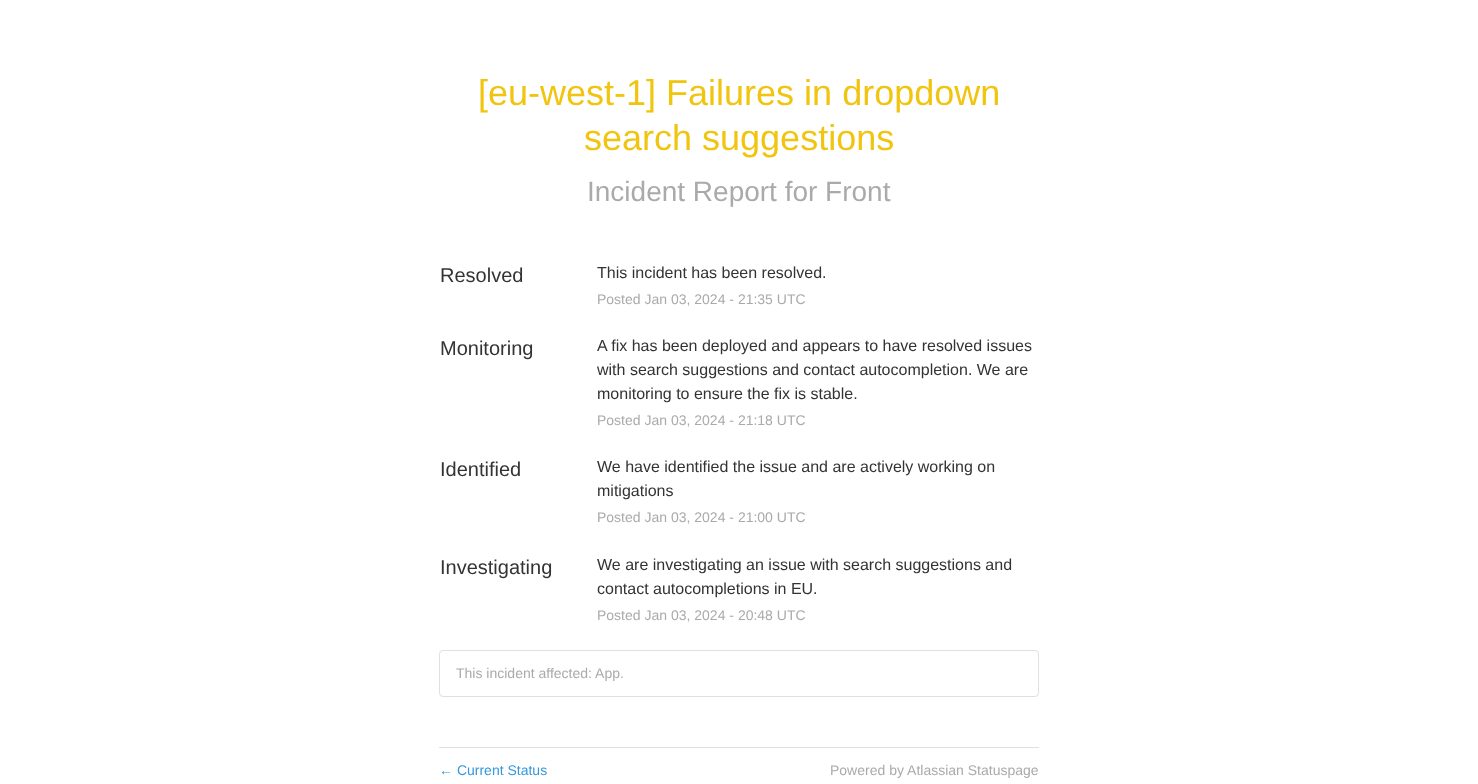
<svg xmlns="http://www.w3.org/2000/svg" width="1478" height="784">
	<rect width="100%" height="100%" fill="#FFFFFF" />
	<g font-family="Liberation Sans" font-size="36" fill="#F1C40F">
		<text x="478" y="105">[eu-west-1] Failures in dropdown</text>
		<text x="584" y="150">search suggestions</text>
	</g>
	<text x="587" y="201" font-family="Liberation Sans" font-size="28" fill="#AAAAAA">Incident Report for Front</text>
	<text x="440" y="282" font-family="Liberation Sans" font-size="20" fill="#333333">Resolved</text>
	<text x="597" y="278" font-family="Liberation Sans" font-size="16" fill="#333333">This incident has been resolved.</text>
	<text x="597" y="304" font-family="Liberation Sans" font-size="14" fill="#AAAAAA">Posted Jan 03, 2024 - 21:35 UTC</text>
	<text x="440" y="355" font-family="Liberation Sans" font-size="20" fill="#333333">Monitoring</text>
	<g font-family="Liberation Sans" font-size="16" fill="#333333">
		<text x="597" y="351">A fix has been deployed and appears to have resolved issues</text>
		<text x="597" y="375">with search suggestions and contact autocompletion. We are</text>
		<text x="597" y="399">monitoring to ensure the fix is stable.</text>
	</g>
	<text x="597" y="425" font-family="Liberation Sans" font-size="14" fill="#AAAAAA">Posted Jan 03, 2024 - 21:18 UTC</text>
	<text x="440" y="476" font-family="Liberation Sans" font-size="20" fill="#333333">Identified</text>
	<g font-family="Liberation Sans" font-size="16" fill="#333333">
		<text x="597" y="472">We have identified the issue and are actively working on</text>
		<text x="597" y="496">mitigations</text>
	</g>
	<text x="597" y="522" font-family="Liberation Sans" font-size="14" fill="#AAAAAA">Posted Jan 03, 2024 - 21:00 UTC</text>
	<text x="440" y="574" font-family="Liberation Sans" font-size="20" fill="#333333">Investigating</text>
	<g font-family="Liberation Sans" font-size="16" fill="#333333">
		<text x="597" y="570">We are investigating an issue with search suggestions and</text>
		<text x="597" y="594">contact autocompletions in EU.</text>
	</g>
	<text x="597" y="620" font-family="Liberation Sans" font-size="14" fill="#AAAAAA">Posted Jan 03, 2024 - 20:48 UTC</text>
	<rect x="439.5" y="650.5" width="599" height="46" rx="3.5" fill="none" stroke="#E0E0E0" />
	<text x="456" y="678" font-family="Liberation Sans" font-size="14" fill="#AAAAAA">This incident affected: App.</text>
	<rect x="439" y="747" width="600" height="1" fill="#E0E0E0" />
	<text x="439" y="775" font-family="Liberation Sans" font-size="14" fill="#3498DB">← Current Status</text>
	<text x="830" y="775" font-family="Liberation Sans" font-size="14" fill="#AAAAAA">Powered by Atlassian Statuspage</text>
</svg>
